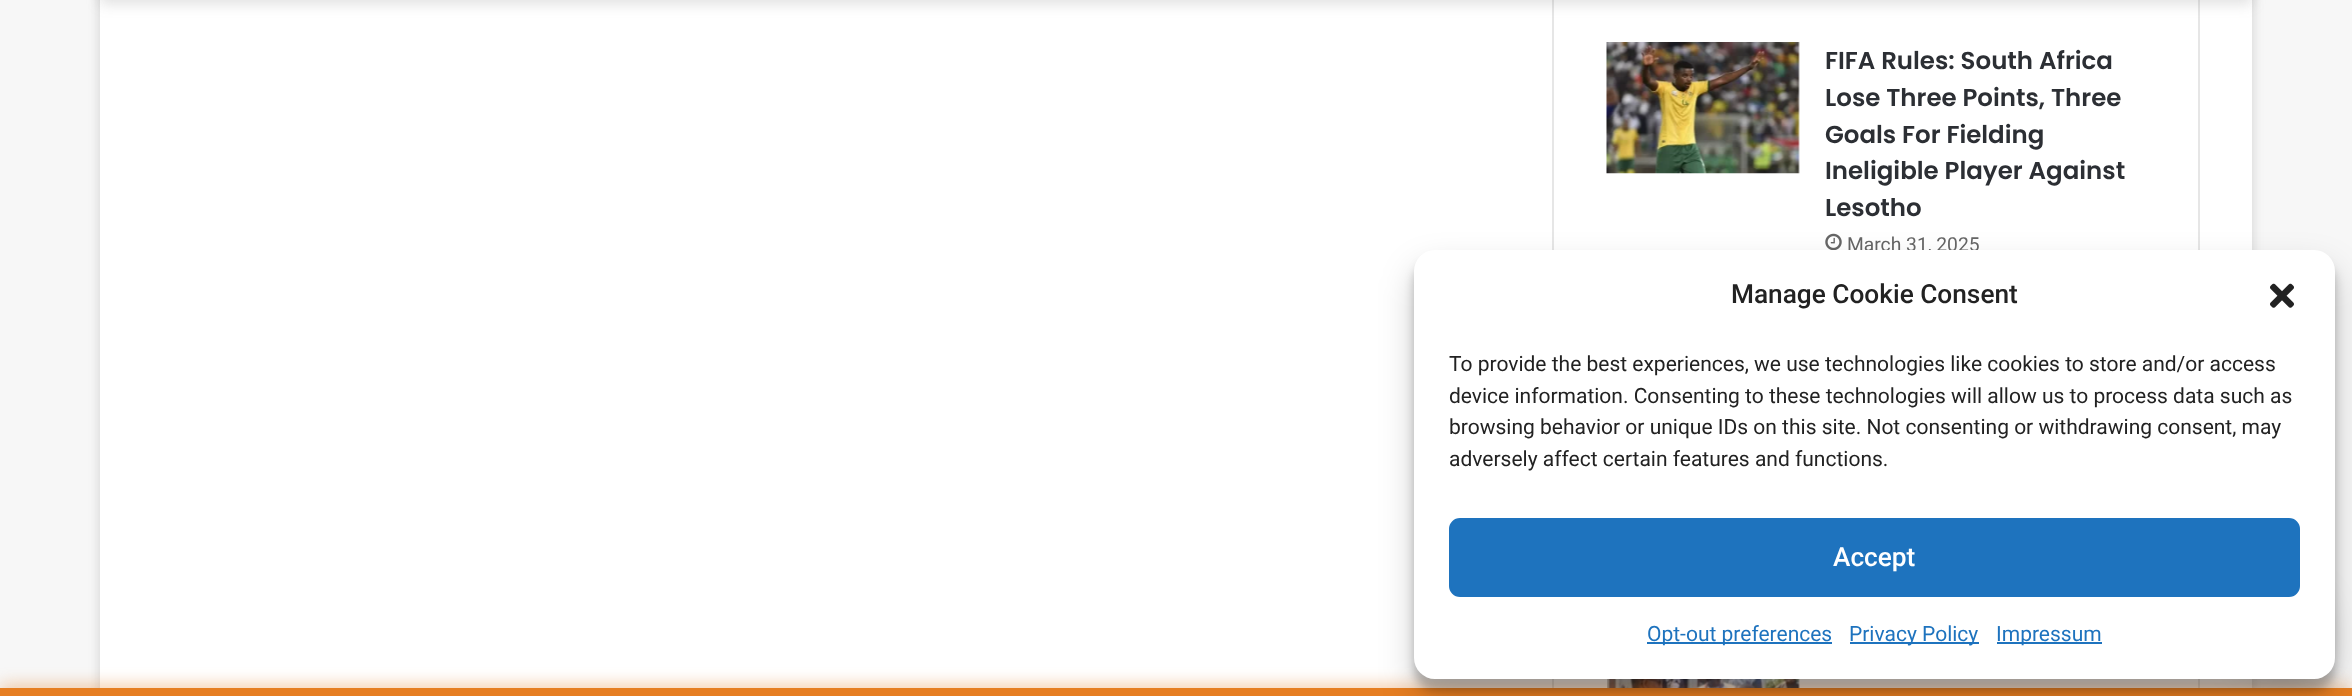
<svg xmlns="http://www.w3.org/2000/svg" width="2352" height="696">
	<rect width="100%" height="100%" fill="#F7F7F7" />
	<rect x="100" y="-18" width="2152" height="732" fill="#ABABAB" fill-opacity="0.5" filter="blur(6px)" />
	<rect x="100" y="0" width="2152" height="688" fill="#FFFFFF" />
	<rect x="1553" y="-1" width="646" height="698" fill="none" stroke="#E6E6E6" stroke-width="2" />
	<rect x="100" y="-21" width="2152" height="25" fill="#636363" fill-opacity="0.2" filter="blur(7px)" />
	<image x="1606" y="42" width="194" height="132" href="assets/img1.png" />
	<g font-family="Poppins" font-size="24.5" font-weight="600" fill="#2C2F34">
		<text x="1825" y="69">FIFA Rules: South Africa</text>
		<text x="1825" y="106">Lose Three Points, Three</text>
		<text x="1825" y="143">Goals For Fielding</text>
		<text x="1825" y="179">Ineligible Player Against</text>
		<text x="1825" y="216">Lesotho</text>
	</g>
	<image x="1825" y="233" width="17" height="17" href="assets/img2.png" />
	<text x="1847" y="251" font-family="Roboto" font-size="19.25" fill="#666666">March 31, 2025</text>
	<image x="1607" y="679" width="193" height="9" href="assets/img3.png" />
	<rect x="2244" y="597" width="73" height="73" rx="36.5" fill="#000000" fill-opacity="0.3" filter="blur(22px)" />
	<rect x="0" y="688" width="2352" height="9" fill="#E67E22" fill-opacity="0.7" filter="blur(9px)" />
	<rect x="0" y="688" width="2352" height="8" fill="#E67E22" />
	<rect x="1414" y="261" width="921" height="429" rx="21" fill="#000000" fill-opacity="0.23" filter="blur(5px)" />
	<rect x="1414" y="268" width="921" height="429" rx="21" fill="#000000" fill-opacity="0.19" filter="blur(17.5px)" />
	<rect x="1414" y="250" width="921" height="429" rx="21" fill="#FFFFFF" />
	<text x="1731" y="303" font-family="Roboto" font-size="26.25" font-weight="500" fill="#222222">Manage Cookie Consent</text>
	<image x="2270" y="283" width="24" height="25" href="assets/img4.png" />
	<g font-family="Roboto" font-size="21" fill="#222222">
		<text x="1449" y="371">To provide the best experiences, we use technologies like cookies to store and/or access</text>
		<text x="1449" y="403">device information. Consenting to these technologies will allow us to process data such as</text>
		<text x="1449" y="434">browsing behavior or unique IDs on this site. Not consenting or withdrawing consent, may</text>
		<text x="1449" y="466">adversely affect certain features and functions.</text>
	</g>
	<rect x="1450" y="519" width="849" height="77" rx="10" fill="#1E73BE" stroke="#1E73BE" stroke-width="2" />
	<text x="1833" y="566" font-family="Roboto" font-size="26.25" font-weight="500" fill="#FFFFFF">Accept</text>
	<rect x="1647" y="642" width="185" height="2" fill="#1E73BE" />
	<text x="1647" y="641" font-family="Roboto" font-size="21" fill="#1E73BE">Opt-out preferences</text>
	<rect x="1850" y="642" width="129" height="2" fill="#1E73BE" />
	<text x="1849" y="641" font-family="Roboto" font-size="21" fill="#1E73BE">Privacy Policy</text>
	<rect x="1997" y="642" width="105" height="2" fill="#1E73BE" />
	<text x="1996" y="641" font-family="Roboto" font-size="21" fill="#1E73BE">Impressum</text>
</svg>
